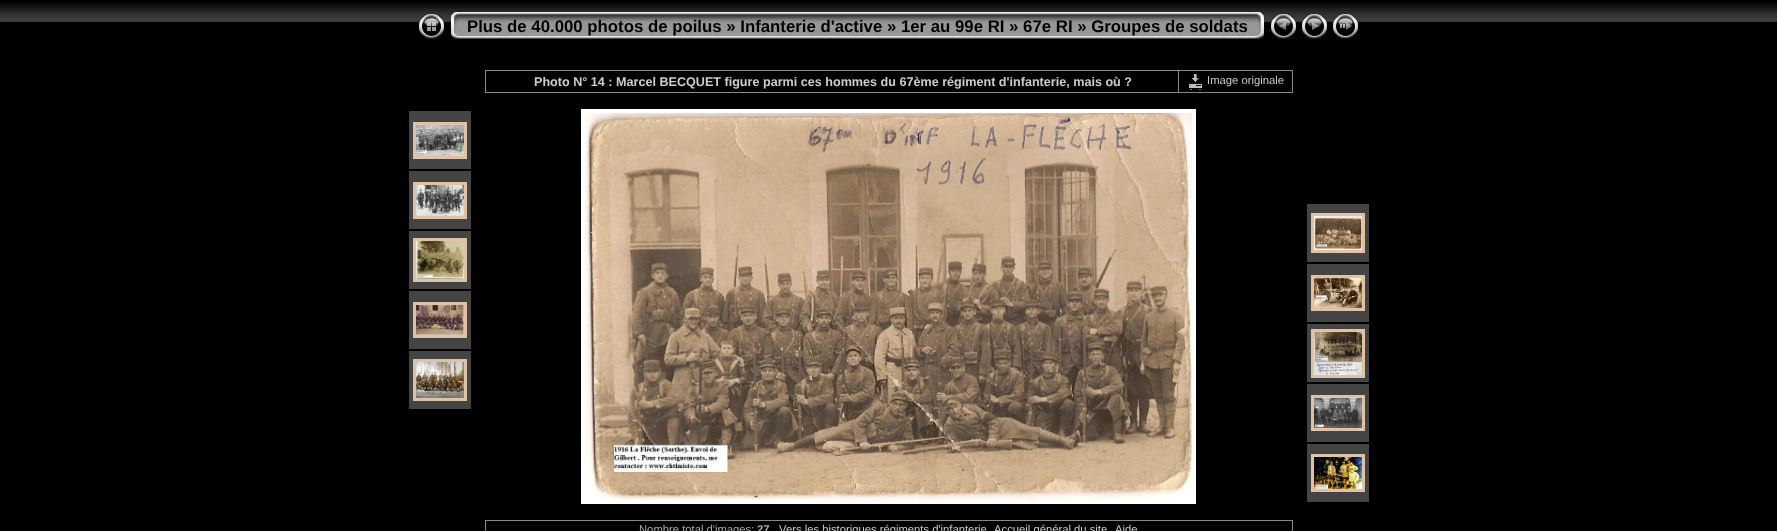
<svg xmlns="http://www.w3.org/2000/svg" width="1777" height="531">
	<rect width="100%" height="100%" fill="#000000" />
	<image x="0" y="2" width="1777" height="20" href="assets/img1.png" />
	<image x="419" y="14" width="25" height="25" href="assets/img2.png" />
	<image x="451" y="12" width="16" height="27" href="assets/img3.png" />
	<image x="467" y="12" width="781" height="27" href="assets/img4.png" />
	<text x="467" y="32" font-family="Liberation Sans" font-size="16.8" font-weight="700" fill="#000000">Plus de 40.000 photos de poilus » Infanterie d'active » 1er au 99e RI » 67e RI » Groupes de soldats</text>
	<image x="1248" y="12" width="16" height="27" href="assets/img5.png" />
	<image x="1271" y="14" width="25" height="25" href="assets/img6.png" />
	<image x="1302" y="14" width="25" height="25" href="assets/img7.png" />
	<image x="1333" y="14" width="25" height="25" href="assets/img8.png" />
	<rect x="485" y="70" width="808" height="1" fill="#888888" />
	<rect x="1292" y="70" width="1" height="23" fill="#888888" />
	<rect x="485" y="92" width="808" height="1" fill="#888888" />
	<rect x="485" y="70" width="1" height="23" fill="#888888" />
	<text x="534" y="86" font-family="Liberation Sans" font-size="12.6" font-weight="700" fill="#CCCCCC">Photo N° 14 : Marcel BECQUET figure parmi ces hommes du 67ème régiment d'infanterie, mais où ?</text>
	<rect x="1178" y="70" width="1" height="23" fill="#888888" />
	<image x="1189" y="74" width="13" height="16" href="assets/img9.png" />
	<text x="1207" y="84" font-family="Liberation Sans" font-size="11.25" fill="#CCCCCC">Image originale</text>
	<rect x="409" y="111" width="62" height="58" fill="#444444" />
	<rect x="414.5" y="123.5" width="51" height="34" fill="none" stroke="#E0C2A4" stroke-width="3" />
	<image x="416" y="125" width="48" height="31" href="assets/img10.png" />
	<rect x="409" y="171" width="62" height="58" fill="#444444" />
	<rect x="414.5" y="183.5" width="51" height="34" fill="none" stroke="#E0C2A4" stroke-width="3" />
	<image x="416" y="185" width="48" height="31" href="assets/img11.png" />
	<rect x="409" y="231" width="62" height="58" fill="#444444" />
	<rect x="414.5" y="239.5" width="51" height="41" fill="none" stroke="#E0C2A4" stroke-width="3" />
	<image x="416" y="241" width="48" height="38" href="assets/img12.png" />
	<rect x="409" y="291" width="62" height="58" fill="#444444" />
	<rect x="414.5" y="303.5" width="51" height="33" fill="none" stroke="#E0C2A4" stroke-width="3" />
	<image x="416" y="305" width="48" height="30" href="assets/img13.png" />
	<rect x="409" y="351" width="62" height="58" fill="#444444" />
	<rect x="414.5" y="360.5" width="51" height="39" fill="none" stroke="#E0C2A4" stroke-width="3" />
	<image x="416" y="362" width="48" height="36" href="assets/img14.png" />
	<rect x="583" y="111" width="611" height="391" fill="none" stroke="#FFFFFF" stroke-width="4" />
	<image x="585" y="113" width="607" height="387" href="assets/img15.png" />
	<rect x="1307" y="204" width="62" height="58" fill="#444444" />
	<rect x="1312.5" y="214.5" width="51" height="37" fill="none" stroke="#E0C2A4" stroke-width="3" />
	<image x="1314" y="216" width="48" height="34" href="assets/img16.png" />
	<rect x="1307" y="264" width="62" height="58" fill="#444444" />
	<rect x="1312.5" y="276.5" width="51" height="33" fill="none" stroke="#E0C2A4" stroke-width="3" />
	<image x="1314" y="278" width="48" height="30" href="assets/img17.png" />
	<rect x="1307" y="324" width="62" height="58" fill="#444444" />
	<rect x="1312.5" y="330.5" width="51" height="46" fill="none" stroke="#E0C2A4" stroke-width="3" />
	<image x="1314" y="332" width="48" height="43" href="assets/img18.png" />
	<rect x="1307" y="384" width="62" height="58" fill="#444444" />
	<rect x="1312.5" y="396.5" width="51" height="33" fill="none" stroke="#E0C2A4" stroke-width="3" />
	<image x="1314" y="398" width="48" height="30" href="assets/img19.png" />
	<rect x="1307" y="444" width="62" height="58" fill="#444444" />
	<rect x="1312.5" y="455.5" width="51" height="35" fill="none" stroke="#E0C2A4" stroke-width="3" />
	<image x="1314" y="457" width="48" height="32" href="assets/img20.png" />
	<rect x="485" y="520" width="808" height="1" fill="#888888" />
	<rect x="1292" y="520" width="1" height="11" fill="#888888" />
	<rect x="485" y="520" width="1" height="11" fill="#888888" />
	<text x="639" y="533" font-family="Liberation Sans" font-size="11.25" fill="#AAAAAA">Nombre total d'images:</text>
	<text x="757" y="533" font-family="Liberation Sans" font-size="11.25" font-weight="700" fill="#AAAAAA">27</text>
	<g font-family="Liberation Sans" font-size="11.25" fill="#CCCCCC">
		<text x="779" y="533">Vers les historiques régiments d'infanterie</text>
		<text x="994" y="533">Accueil général du site</text>
		<text x="1115" y="533">Aide</text>
	</g>
</svg>
